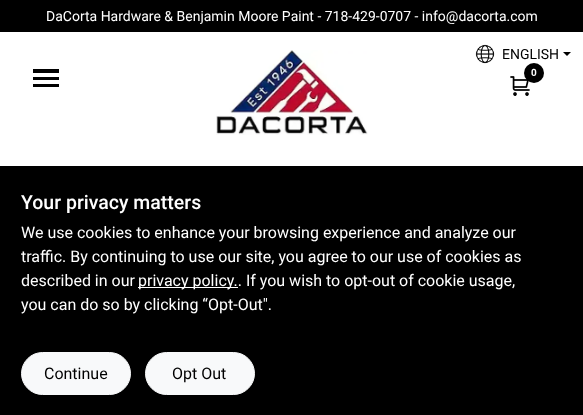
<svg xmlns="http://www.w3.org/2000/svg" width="583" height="415">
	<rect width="100%" height="100%" fill="#FFFFFF" />
	<rect x="0" y="0" width="583" height="32" fill="#000000" />
	<text x="46" y="21" font-family="Roboto" font-size="14" fill="#FFFFFF">DaCorta Hardware &amp; Benjamin Moore Paint - 718-429-0707 - info@dacorta.com</text>
	<rect x="33" y="69" width="26" height="4" fill="#000000" />
	<rect x="33" y="77" width="26" height="3" fill="#000000" />
	<rect x="33" y="84" width="26" height="3" fill="#000000" />
	<image x="216" y="50" width="152" height="85" href="assets/img1.png" />
	<image x="475" y="44" width="20" height="20" href="assets/img2.png" />
	<text x="502" y="59" font-family="Roboto" font-size="14" fill="#000000">ENGLISH</text>
	<path d="M563 52H571L567 56Z" fill="#000000" />
	<image x="510" y="76" width="20" height="20" href="assets/img3.png" />
	<circle cx="534" cy="73" r="10" fill="#000000" />
	<text x="531" y="76" font-family="Roboto" font-size="10" font-weight="700" letter-spacing="-1" fill="#FFFFFF">0</text>
	<rect x="0" y="166" width="583" height="249" fill="#000000" />
	<text x="21" y="209" font-family="Roboto" font-size="19.5" font-weight="500" fill="#FFFFFF">Your privacy matters</text>
	<g font-family="Roboto" font-size="16" fill="#FFFFFF">
		<text x="21" y="238">We use cookies to enhance your browsing experience and analyze our</text>
		<text x="21" y="262">traffic. By continuing to use our site, you agree to our use of cookies as</text>
		<text x="21" y="286">described in our</text>
	</g>
	<rect x="138" y="287" width="100" height="1" fill="#FFFFFF" />
	<g font-family="Roboto" font-size="16" fill="#FFFFFF">
		<text x="138" y="286">privacy policy.. If you wish to opt-out of cookie usage,</text>
		<text x="21" y="310">you can do so by clicking “Opt-Out".</text>
	</g>
	<rect x="21.5" y="352.5" width="109" height="42" rx="21" fill="#F8F9FA" stroke="#F8F9FA" />
	<text x="44" y="379" font-family="Roboto" font-size="16" fill="#000000">Continue</text>
	<rect x="145.5" y="352.5" width="109" height="42" rx="21" fill="#F8F9FA" stroke="#F8F9FA" />
	<text x="172" y="379" font-family="Roboto" font-size="16" fill="#000000">Opt Out</text>
</svg>
